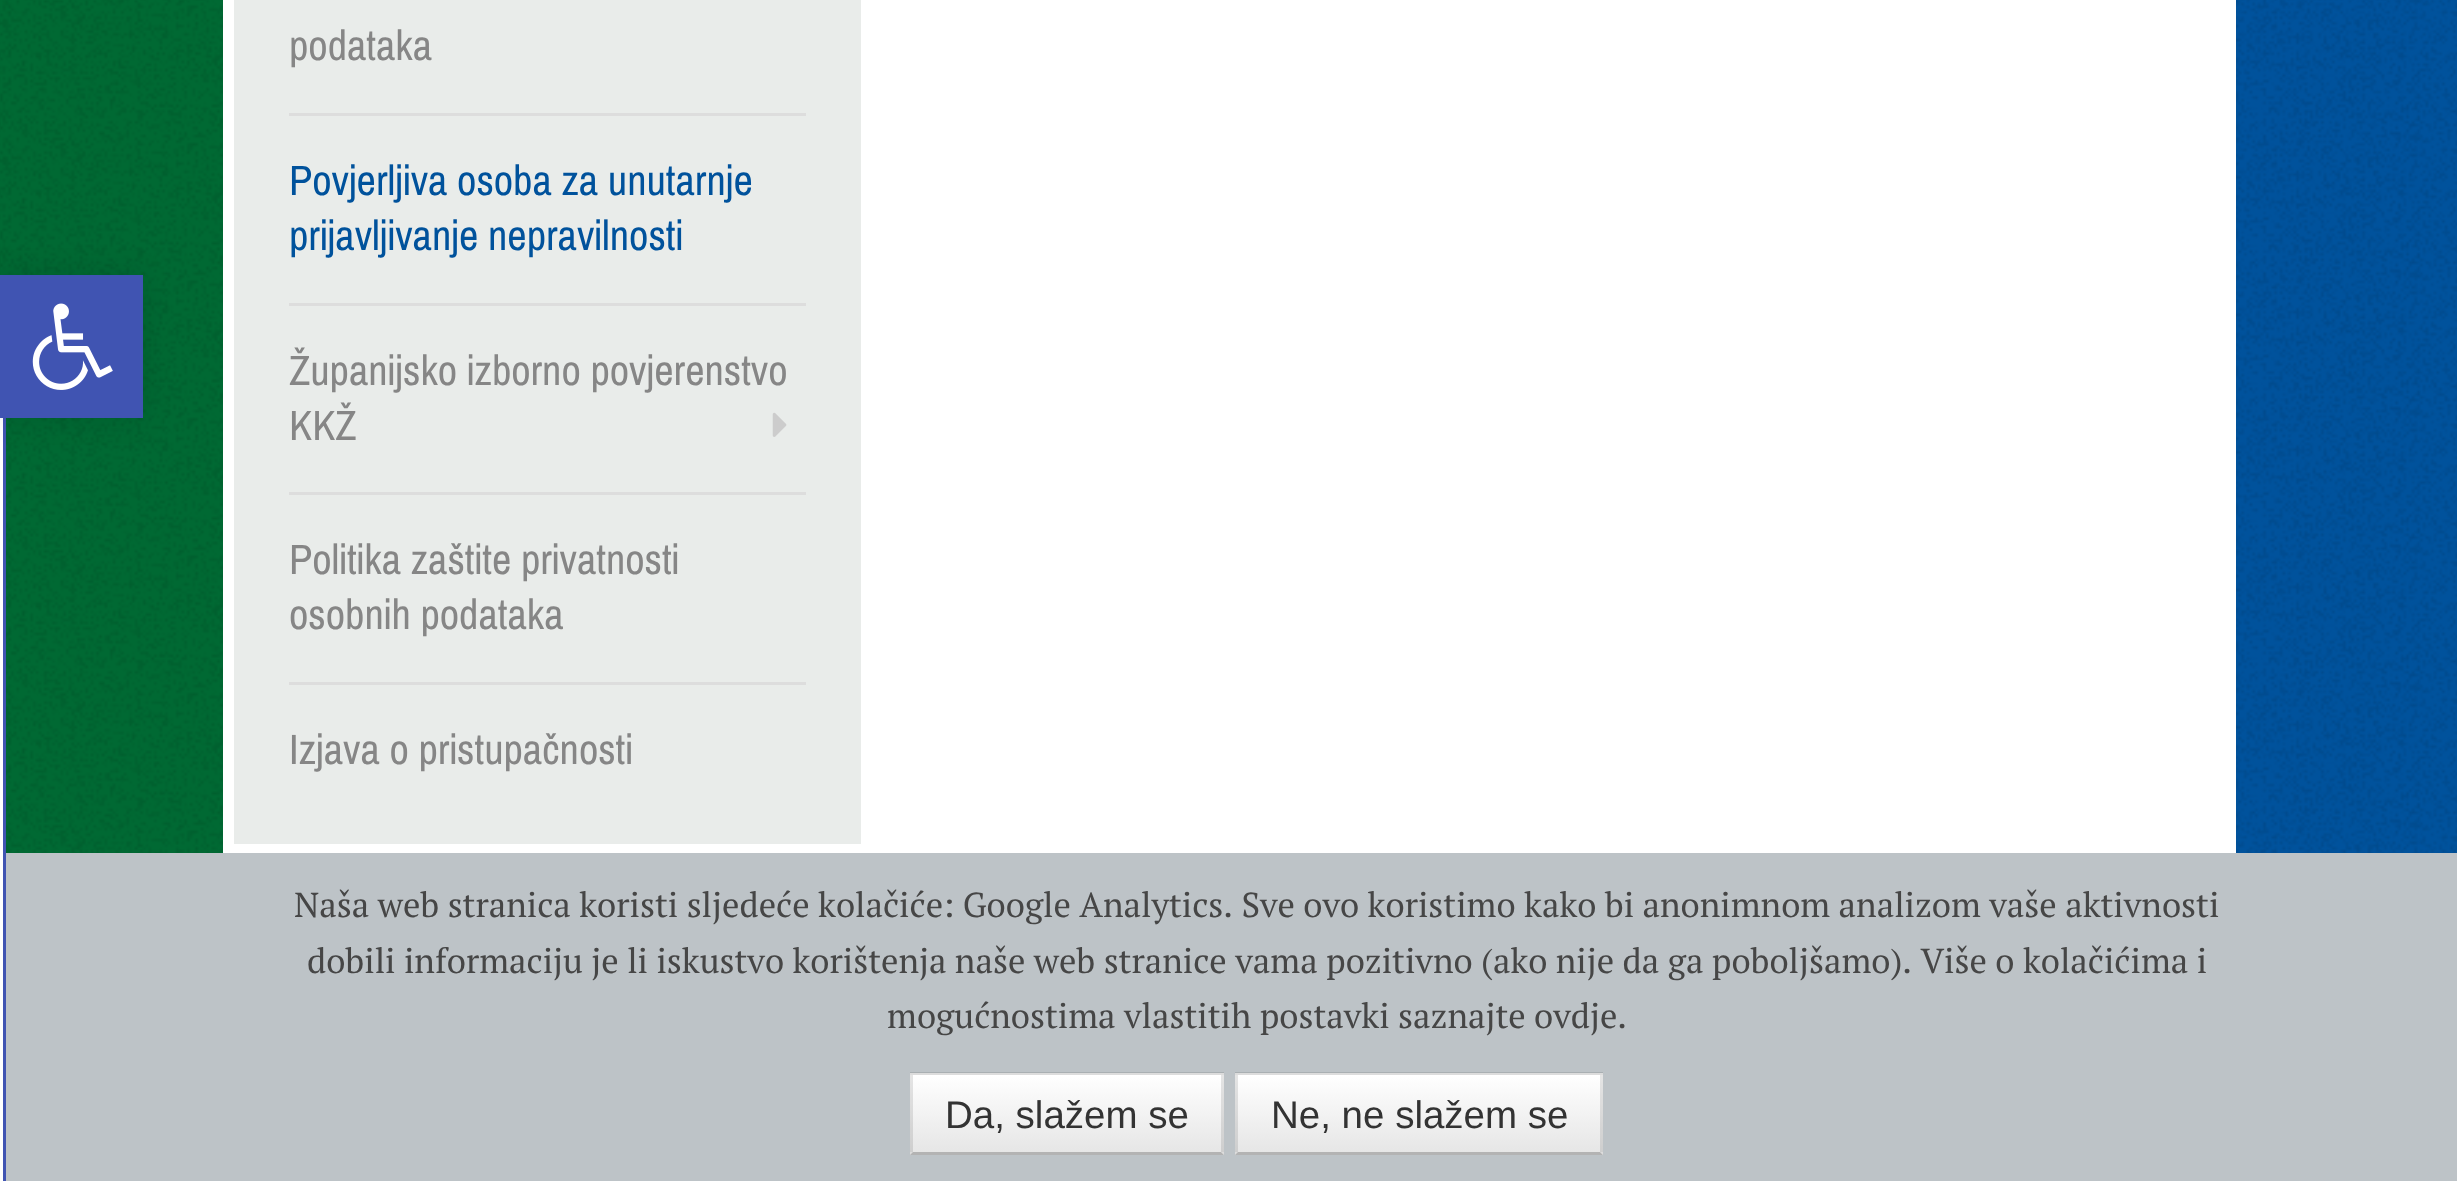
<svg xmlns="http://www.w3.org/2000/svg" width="2457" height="1181">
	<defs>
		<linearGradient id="g1" gradientUnits="userSpaceOnUse" x1="1067" y1="1075" x2="1067" y2="1152"><stop offset="0" stop-color="#FFFFFF" /><stop offset="1" stop-color="#E6E6E6" /></linearGradient>
		<linearGradient id="g2" gradientUnits="userSpaceOnUse" x1="1419" y1="1075" x2="1419" y2="1152"><stop offset="0" stop-color="#FFFFFF" /><stop offset="1" stop-color="#E6E6E6" /></linearGradient>
	</defs>
	<rect width="100%" height="100%" fill="#FFFFFF" />
	<image x="0" y="0" width="2457" height="853" href="assets/img1.png" />
	<rect x="0" y="418" width="3" height="435" fill="#FFFFFF" />
	<rect x="-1.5" y="276.5" width="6" height="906" fill="none" stroke="#4054B2" stroke-width="3" />
	<rect x="0" y="275" width="143" height="143" fill="#000000" fill-opacity="0.1" filter="blur(14px)" />
	<rect x="0" y="275" width="143" height="143" fill="#4054B2" />
	<image x="32" y="303" width="81" height="87" href="assets/img2.png" />
	<rect x="223" y="0" width="2013" height="853" fill="#FFFFFF" />
	<rect x="234" y="0" width="627" height="844" fill="#E9ECEA" />
	<rect x="289" y="113" width="517" height="3" fill="#DDDDDD" />
	<text x="289" y="60" font-family="Archivo Narrow" font-size="42.4" fill="#868686">podataka</text>
	<rect x="289" y="303" width="517" height="3" fill="#DDDDDD" />
	<g font-family="Archivo Narrow" font-size="42.4" fill="#00529C">
		<text x="289" y="195">Povjerljiva osoba za unutarnje</text>
		<text x="289" y="250">prijavljivanje nepravilnosti</text>
	</g>
	<rect x="289" y="492" width="517" height="3" fill="#DDDDDD" />
	<g font-family="Archivo Narrow" font-size="42.4" fill="#868686">
		<text x="289" y="385">Županijsko izborno povjerenstvo</text>
		<text x="289" y="440">KKŽ</text>
	</g>
	<image x="772" y="412" width="15" height="25" href="assets/img3.png" />
	<rect x="289" y="682" width="517" height="3" fill="#DDDDDD" />
	<g font-family="Archivo Narrow" font-size="42.4" fill="#868686">
		<text x="289" y="574">Politika zaštite privatnosti</text>
		<text x="289" y="629">osobnih podataka</text>
		<text x="289" y="764">Izjava o pristupačnosti</text>
	</g>
	<rect x="6" y="853" width="2451" height="328" fill="#BDC3C7" />
	<g font-family="PT Serif" font-size="34.65" fill="#464646">
		<text x="294" y="917">Naša web stranica koristi sljedeće kolačiće: Google Analytics. Sve ovo koristimo kako bi anonimnom analizom vaše aktivnosti</text>
		<text x="307" y="973">dobili informaciju je li iskustvo korištenja naše web stranice vama pozitivno (ako nije da ga poboljšamo). Više o kolačićima i</text>
		<text x="887" y="1028">mogućnostima vlastitih postavki saznajte</text>
		<text x="1534" y="1028">ovdje.</text>
	</g>
	<rect x="910" y="1073" width="314" height="82" fill="#F5F5F5" />
	<rect x="910" y="1075" width="314" height="77" fill="url(#g1)" />
	<path d="M910 1072H1224L1221 1075H913Z" fill="#000000" fill-opacity="0.1" />
	<path d="M1224 1072V1155L1221 1152V1075Z" fill="#000000" fill-opacity="0.1" />
	<path d="M1224 1155H910L913 1152H1221Z" fill="#B3B3B3" />
	<path d="M910 1155V1072L913 1075V1152Z" fill="#000000" fill-opacity="0.1" />
	<text x="945" y="1128" font-family="Liberation Sans" font-size="38.5" fill="#333333">Da, slažem se</text>
	<rect x="1235" y="1073" width="368" height="82" fill="#F5F5F5" />
	<rect x="1235" y="1075" width="368" height="77" fill="url(#g2)" />
	<path d="M1235 1072H1603L1600 1075H1238Z" fill="#000000" fill-opacity="0.1" />
	<path d="M1603 1072V1155L1600 1152V1075Z" fill="#000000" fill-opacity="0.1" />
	<path d="M1603 1155H1235L1238 1152H1600Z" fill="#B3B3B3" />
	<path d="M1235 1155V1072L1238 1075V1152Z" fill="#000000" fill-opacity="0.1" />
	<text x="1271" y="1128" font-family="Liberation Sans" font-size="38.5" fill="#333333">Ne, ne slažem se</text>
</svg>
